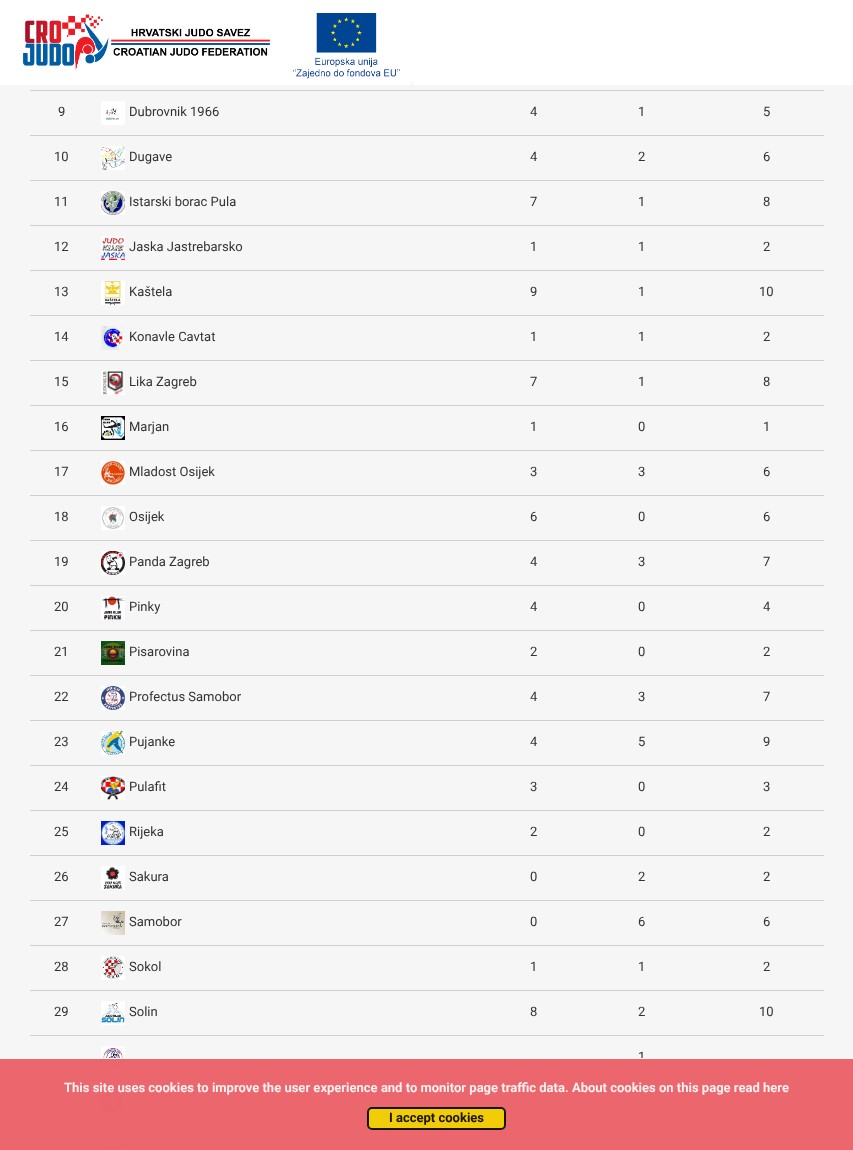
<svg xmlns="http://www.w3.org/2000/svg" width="853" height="1150">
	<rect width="100%" height="100%" fill="#F6F6F6" />
	<rect x="0" y="0" width="853" height="85" fill="#FFFFFF" />
	<image x="23" y="14" width="247" height="56" href="assets/img1.png" />
	<image x="293" y="13" width="120" height="72" href="assets/img2.png" />
	<rect x="30" y="90" width="794" height="1" fill="#CECECE" />
	<rect x="30" y="135" width="794" height="1" fill="#CECECE" />
	<text x="58" y="116" font-family="Roboto" font-size="13" fill="#333333">9</text>
	<image x="101" y="101" width="24" height="24" href="assets/img3.png" />
	<g font-family="Roboto" font-size="13" fill="#333333">
		<text x="129" y="116">Dubrovnik 1966</text>
		<text x="530" y="116">4</text>
		<text x="638" y="116">1</text>
		<text x="763" y="116">5</text>
	</g>
	<rect x="30" y="180" width="794" height="1" fill="#CECECE" />
	<text x="54" y="161" font-family="Roboto" font-size="13" fill="#333333">10</text>
	<image x="101" y="146" width="24" height="24" href="assets/img4.png" />
	<g font-family="Roboto" font-size="13" fill="#333333">
		<text x="129" y="161">Dugave</text>
		<text x="530" y="161">4</text>
		<text x="638" y="161">2</text>
		<text x="763" y="161">6</text>
	</g>
	<rect x="30" y="225" width="794" height="1" fill="#CECECE" />
	<text x="54" y="206" font-family="Roboto" font-size="13" fill="#333333">11</text>
	<image x="101" y="191" width="24" height="24" href="assets/img5.png" />
	<g font-family="Roboto" font-size="13" fill="#333333">
		<text x="129" y="206">Istarski borac Pula</text>
		<text x="530" y="206">7</text>
		<text x="638" y="206">1</text>
		<text x="763" y="206">8</text>
	</g>
	<rect x="30" y="270" width="794" height="1" fill="#CECECE" />
	<text x="54" y="251" font-family="Roboto" font-size="13" fill="#333333">12</text>
	<image x="101" y="236" width="24" height="24" href="assets/img6.png" />
	<g font-family="Roboto" font-size="13" fill="#333333">
		<text x="129" y="251">Jaska Jastrebarsko</text>
		<text x="530" y="251">1</text>
		<text x="638" y="251">1</text>
		<text x="763" y="251">2</text>
	</g>
	<rect x="30" y="315" width="794" height="1" fill="#CECECE" />
	<text x="54" y="296" font-family="Roboto" font-size="13" fill="#333333">13</text>
	<image x="101" y="281" width="24" height="24" href="assets/img7.png" />
	<g font-family="Roboto" font-size="13" fill="#333333">
		<text x="129" y="296">Kaštela</text>
		<text x="530" y="296">9</text>
		<text x="638" y="296">1</text>
		<text x="759" y="296">10</text>
	</g>
	<rect x="30" y="360" width="794" height="1" fill="#CECECE" />
	<text x="54" y="341" font-family="Roboto" font-size="13" fill="#333333">14</text>
	<image x="101" y="326" width="24" height="24" href="assets/img8.png" />
	<g font-family="Roboto" font-size="13" fill="#333333">
		<text x="129" y="341">Konavle Cavtat</text>
		<text x="530" y="341">1</text>
		<text x="638" y="341">1</text>
		<text x="763" y="341">2</text>
	</g>
	<rect x="30" y="405" width="794" height="1" fill="#CECECE" />
	<text x="54" y="386" font-family="Roboto" font-size="13" fill="#333333">15</text>
	<image x="101" y="371" width="24" height="24" href="assets/img9.png" />
	<g font-family="Roboto" font-size="13" fill="#333333">
		<text x="129" y="386">Lika Zagreb</text>
		<text x="530" y="386">7</text>
		<text x="638" y="386">1</text>
		<text x="763" y="386">8</text>
	</g>
	<rect x="30" y="450" width="794" height="1" fill="#CECECE" />
	<text x="54" y="431" font-family="Roboto" font-size="13" fill="#333333">16</text>
	<image x="101" y="416" width="24" height="24" href="assets/img10.png" />
	<g font-family="Roboto" font-size="13" fill="#333333">
		<text x="129" y="431">Marjan</text>
		<text x="530" y="431">1</text>
		<text x="638" y="431">0</text>
		<text x="763" y="431">1</text>
	</g>
	<rect x="30" y="495" width="794" height="1" fill="#CECECE" />
	<text x="54" y="476" font-family="Roboto" font-size="13" fill="#333333">17</text>
	<image x="101" y="461" width="24" height="24" href="assets/img11.png" />
	<g font-family="Roboto" font-size="13" fill="#333333">
		<text x="129" y="476">Mladost Osijek</text>
		<text x="530" y="476">3</text>
		<text x="638" y="476">3</text>
		<text x="763" y="476">6</text>
	</g>
	<rect x="30" y="540" width="794" height="1" fill="#CECECE" />
	<text x="54" y="521" font-family="Roboto" font-size="13" fill="#333333">18</text>
	<image x="101" y="506" width="24" height="24" href="assets/img12.png" />
	<g font-family="Roboto" font-size="13" fill="#333333">
		<text x="129" y="521">Osijek</text>
		<text x="530" y="521">6</text>
		<text x="638" y="521">0</text>
		<text x="763" y="521">6</text>
	</g>
	<rect x="30" y="585" width="794" height="1" fill="#CECECE" />
	<text x="54" y="566" font-family="Roboto" font-size="13" fill="#333333">19</text>
	<image x="101" y="551" width="24" height="24" href="assets/img13.png" />
	<g font-family="Roboto" font-size="13" fill="#333333">
		<text x="129" y="566">Panda Zagreb</text>
		<text x="530" y="566">4</text>
		<text x="638" y="566">3</text>
		<text x="763" y="566">7</text>
	</g>
	<rect x="30" y="630" width="794" height="1" fill="#CECECE" />
	<text x="54" y="611" font-family="Roboto" font-size="13" fill="#333333">20</text>
	<image x="101" y="596" width="24" height="24" href="assets/img14.png" />
	<g font-family="Roboto" font-size="13" fill="#333333">
		<text x="129" y="611">Pinky</text>
		<text x="530" y="611">4</text>
		<text x="638" y="611">0</text>
		<text x="763" y="611">4</text>
	</g>
	<rect x="30" y="675" width="794" height="1" fill="#CECECE" />
	<text x="54" y="656" font-family="Roboto" font-size="13" fill="#333333">21</text>
	<image x="101" y="641" width="24" height="24" href="assets/img15.png" />
	<g font-family="Roboto" font-size="13" fill="#333333">
		<text x="129" y="656">Pisarovina</text>
		<text x="530" y="656">2</text>
		<text x="638" y="656">0</text>
		<text x="763" y="656">2</text>
	</g>
	<rect x="30" y="720" width="794" height="1" fill="#CECECE" />
	<text x="54" y="701" font-family="Roboto" font-size="13" fill="#333333">22</text>
	<image x="101" y="686" width="24" height="24" href="assets/img16.png" />
	<g font-family="Roboto" font-size="13" fill="#333333">
		<text x="129" y="701">Profectus Samobor</text>
		<text x="530" y="701">4</text>
		<text x="638" y="701">3</text>
		<text x="763" y="701">7</text>
	</g>
	<rect x="30" y="765" width="794" height="1" fill="#CECECE" />
	<text x="54" y="746" font-family="Roboto" font-size="13" fill="#333333">23</text>
	<image x="101" y="731" width="24" height="24" href="assets/img17.png" />
	<g font-family="Roboto" font-size="13" fill="#333333">
		<text x="129" y="746">Pujanke</text>
		<text x="530" y="746">4</text>
		<text x="638" y="746">5</text>
		<text x="763" y="746">9</text>
	</g>
	<rect x="30" y="810" width="794" height="1" fill="#CECECE" />
	<text x="54" y="791" font-family="Roboto" font-size="13" fill="#333333">24</text>
	<image x="101" y="776" width="24" height="24" href="assets/img18.png" />
	<g font-family="Roboto" font-size="13" fill="#333333">
		<text x="129" y="791">Pulafit</text>
		<text x="530" y="791">3</text>
		<text x="638" y="791">0</text>
		<text x="763" y="791">3</text>
	</g>
	<rect x="30" y="855" width="794" height="1" fill="#CECECE" />
	<text x="54" y="836" font-family="Roboto" font-size="13" fill="#333333">25</text>
	<image x="101" y="821" width="24" height="24" href="assets/img19.png" />
	<g font-family="Roboto" font-size="13" fill="#333333">
		<text x="129" y="836">Rijeka</text>
		<text x="530" y="836">2</text>
		<text x="638" y="836">0</text>
		<text x="763" y="836">2</text>
	</g>
	<rect x="30" y="900" width="794" height="1" fill="#CECECE" />
	<text x="54" y="881" font-family="Roboto" font-size="13" fill="#333333">26</text>
	<image x="101" y="866" width="24" height="24" href="assets/img20.png" />
	<g font-family="Roboto" font-size="13" fill="#333333">
		<text x="129" y="881">Sakura</text>
		<text x="530" y="881">0</text>
		<text x="638" y="881">2</text>
		<text x="763" y="881">2</text>
	</g>
	<rect x="30" y="945" width="794" height="1" fill="#CECECE" />
	<text x="54" y="926" font-family="Roboto" font-size="13" fill="#333333">27</text>
	<image x="101" y="911" width="24" height="24" href="assets/img21.png" />
	<g font-family="Roboto" font-size="13" fill="#333333">
		<text x="129" y="926">Samobor</text>
		<text x="530" y="926">0</text>
		<text x="638" y="926">6</text>
		<text x="763" y="926">6</text>
	</g>
	<rect x="30" y="990" width="794" height="1" fill="#CECECE" />
	<text x="54" y="971" font-family="Roboto" font-size="13" fill="#333333">28</text>
	<image x="101" y="956" width="24" height="24" href="assets/img22.png" />
	<g font-family="Roboto" font-size="13" fill="#333333">
		<text x="129" y="971">Sokol</text>
		<text x="530" y="971">1</text>
		<text x="638" y="971">1</text>
		<text x="763" y="971">2</text>
	</g>
	<rect x="30" y="1035" width="794" height="1" fill="#CECECE" />
	<text x="54" y="1016" font-family="Roboto" font-size="13" fill="#333333">29</text>
	<image x="101" y="1001" width="24" height="24" href="assets/img23.png" />
	<g font-family="Roboto" font-size="13" fill="#333333">
		<text x="129" y="1016">Solin</text>
		<text x="530" y="1016">8</text>
		<text x="638" y="1016">2</text>
		<text x="759" y="1016">10</text>
	</g>
	<rect x="30" y="1080" width="794" height="1" fill="#CECECE" />
	<image x="101" y="1046" width="24" height="24" href="assets/img24.png" />
	<text x="638" y="1061" font-family="Roboto" font-size="13" fill="#333333">1</text>
	<rect x="30" y="1125" width="794" height="1" fill="#CECECE" />
	<image x="101" y="1091" width="24" height="24" href="assets/img25.png" />
	<image x="101" y="1136" width="24" height="14" href="assets/img26.png" />
	<rect x="0" y="1059" width="853" height="91" fill="#EB656C" fill-opacity="0.9" />
	<rect x="367" y="1107" width="139" height="23" rx="5" fill="#F1D600" fill-opacity="0.9" />
	<rect x="368" y="1108" width="137" height="21" rx="4" fill="none" stroke="#000000" stroke-opacity="0.9" stroke-width="2" />
	<rect x="0" y="1059" width="853" height="91" fill="#EB656C" fill-opacity="0.9" />
	<rect x="0" y="1058" width="853" height="1" fill="#FFFEFE" />
	<text x="64" y="1092" font-family="Roboto" font-size="13" font-weight="700" fill="#FDF1F1">This site uses cookies to improve the user experience and to monitor page traffic data. About cookies on this page read here</text>
	<rect x="367" y="1107" width="139" height="23" rx="5" fill="#F1D600" fill-opacity="0.9" />
	<rect x="368" y="1108" width="137" height="21" rx="4" fill="none" stroke="#000000" stroke-opacity="0.9" stroke-width="2" />
	<text x="389" y="1122" font-family="Roboto" font-size="13" font-weight="700" fill="#181401">I accept cookies</text>
</svg>
